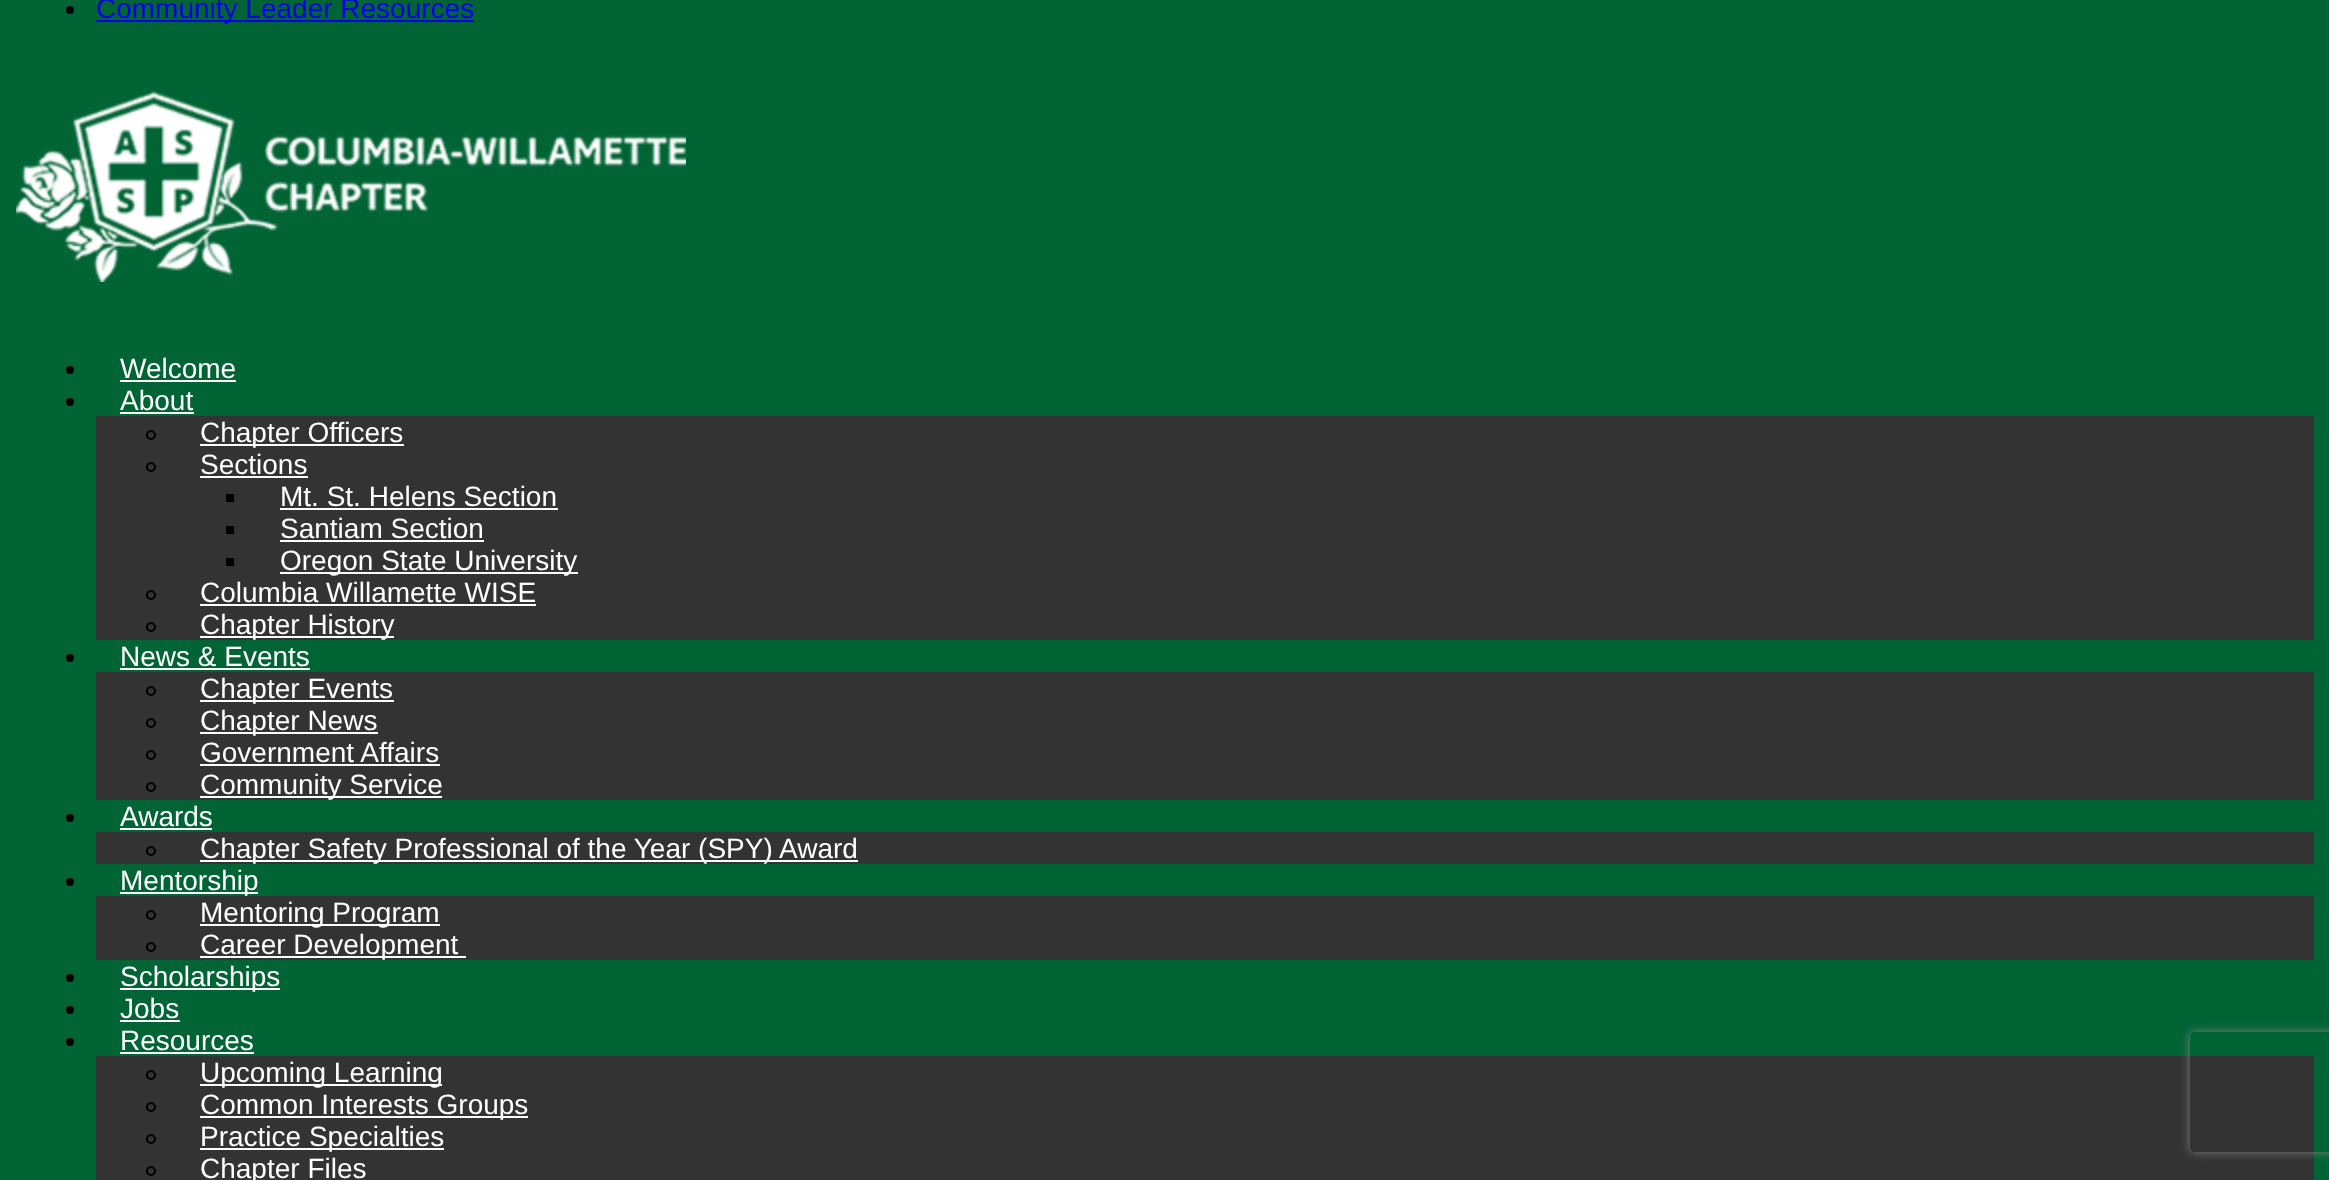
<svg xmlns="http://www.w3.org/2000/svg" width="2329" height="1180">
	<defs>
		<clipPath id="clip1"><path d="M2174 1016H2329V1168H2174ZM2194 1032H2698C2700 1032 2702 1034 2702 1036V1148C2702 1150 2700 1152 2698 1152H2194C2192 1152 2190 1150 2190 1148V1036C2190 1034 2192 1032 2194 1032Z" clip-rule="evenodd" /></clipPath>
	</defs>
	<rect width="100%" height="100%" fill="#006435" />
	<circle cx="70" cy="10" r="4" fill="#000000" />
	<rect x="96" y="20" width="378" height="2" fill="#0000EE" />
	<text x="96" y="18" font-family="Liberation Sans" font-size="28" fill="#0000EE">Community Leader Resources</text>
	<image x="16" y="91" width="670" height="191" href="assets/img1.png" />
	<circle cx="70" cy="370" r="4" fill="#000000" />
	<text x="120" y="378" font-family="Liberation Sans" font-size="28" fill="#FFFFFF">Welcome</text>
	<rect x="120" y="380" width="116" height="2" fill="#FFFFFF" />
	<circle cx="70" cy="402" r="4" fill="#000000" />
	<text x="120" y="410" font-family="Liberation Sans" font-size="28" fill="#FFFFFF">About</text>
	<rect x="120" y="412" width="74" height="2" fill="#FFFFFF" />
	<rect x="96" y="416" width="2218" height="224" fill="#333333" />
	<circle cx="151" cy="435" r="4" fill="none" stroke="#000000" stroke-width="2" />
	<rect x="200" y="444" width="204" height="2" fill="#FFFFFF" />
	<text x="200" y="442" font-family="Liberation Sans" font-size="28" fill="#FFFFFF">Chapter Officers</text>
	<circle cx="151" cy="467" r="4" fill="none" stroke="#000000" stroke-width="2" />
	<text x="200" y="474" font-family="Liberation Sans" font-size="28" fill="#FFFFFF">Sections</text>
	<rect x="200" y="476" width="108" height="2" fill="#FFFFFF" />
	<rect x="226" y="494" width="8" height="8" fill="#000000" />
	<text x="280" y="506" font-family="Liberation Sans" font-size="28" fill="#FFFFFF">Mt. St. Helens Section</text>
	<rect x="280" y="508" width="278" height="2" fill="#FFFFFF" />
	<rect x="226" y="526" width="8" height="8" fill="#000000" />
	<text x="280" y="538" font-family="Liberation Sans" font-size="28" fill="#FFFFFF">Santiam Section</text>
	<rect x="280" y="540" width="204" height="2" fill="#FFFFFF" />
	<rect x="226" y="558" width="8" height="8" fill="#000000" />
	<rect x="280" y="572" width="298" height="2" fill="#FFFFFF" />
	<text x="280" y="570" font-family="Liberation Sans" font-size="28" fill="#FFFFFF">Oregon State University</text>
	<circle cx="151" cy="595" r="4" fill="none" stroke="#000000" stroke-width="2" />
	<text x="200" y="602" font-family="Liberation Sans" font-size="28" fill="#FFFFFF">Columbia Willamette WISE</text>
	<rect x="200" y="604" width="336" height="2" fill="#FFFFFF" />
	<circle cx="151" cy="627" r="4" fill="none" stroke="#000000" stroke-width="2" />
	<rect x="200" y="636" width="194" height="2" fill="#FFFFFF" />
	<text x="200" y="634" font-family="Liberation Sans" font-size="28" fill="#FFFFFF">Chapter History</text>
	<circle cx="70" cy="658" r="4" fill="#000000" />
	<text x="120" y="666" font-family="Liberation Sans" font-size="28" fill="#FFFFFF">News &amp; Events</text>
	<rect x="120" y="668" width="190" height="2" fill="#FFFFFF" />
	<rect x="96" y="672" width="2218" height="128" fill="#333333" />
	<circle cx="151" cy="691" r="4" fill="none" stroke="#000000" stroke-width="2" />
	<rect x="200" y="700" width="194" height="2" fill="#FFFFFF" />
	<text x="200" y="698" font-family="Liberation Sans" font-size="28" fill="#FFFFFF">Chapter Events</text>
	<circle cx="151" cy="723" r="4" fill="none" stroke="#000000" stroke-width="2" />
	<rect x="200" y="732" width="178" height="2" fill="#FFFFFF" />
	<text x="200" y="730" font-family="Liberation Sans" font-size="28" fill="#FFFFFF">Chapter News</text>
	<circle cx="151" cy="755" r="4" fill="none" stroke="#000000" stroke-width="2" />
	<text x="200" y="762" font-family="Liberation Sans" font-size="28" fill="#FFFFFF">Government Affairs</text>
	<rect x="200" y="764" width="240" height="2" fill="#FFFFFF" />
	<circle cx="151" cy="787" r="4" fill="none" stroke="#000000" stroke-width="2" />
	<rect x="200" y="796" width="242" height="2" fill="#FFFFFF" />
	<text x="200" y="794" font-family="Liberation Sans" font-size="28" fill="#FFFFFF">Community Service</text>
	<circle cx="70" cy="818" r="4" fill="#000000" />
	<text x="120" y="826" font-family="Liberation Sans" font-size="28" fill="#FFFFFF">Awards</text>
	<rect x="120" y="828" width="92" height="2" fill="#FFFFFF" />
	<rect x="96" y="832" width="2218" height="32" fill="#333333" />
	<circle cx="151" cy="851" r="4" fill="none" stroke="#000000" stroke-width="2" />
	<rect x="200" y="860" width="658" height="2" fill="#FFFFFF" />
	<text x="200" y="858" font-family="Liberation Sans" font-size="28" fill="#FFFFFF">Chapter Safety Professional of the Year (SPY) Award</text>
	<circle cx="70" cy="882" r="4" fill="#000000" />
	<rect x="120" y="892" width="138" height="2" fill="#FFFFFF" />
	<text x="120" y="890" font-family="Liberation Sans" font-size="28" fill="#FFFFFF">Mentorship</text>
	<rect x="96" y="896" width="2218" height="64" fill="#333333" />
	<circle cx="151" cy="915" r="4" fill="none" stroke="#000000" stroke-width="2" />
	<rect x="200" y="924" width="240" height="2" fill="#FFFFFF" />
	<text x="200" y="922" font-family="Liberation Sans" font-size="28" fill="#FFFFFF">Mentoring Program</text>
	<circle cx="151" cy="947" r="4" fill="none" stroke="#000000" stroke-width="2" />
	<rect x="200" y="956" width="266" height="2" fill="#FFFFFF" />
	<text x="200" y="954" font-family="Liberation Sans" font-size="28" fill="#FFFFFF">Career Development</text>
	<circle cx="70" cy="978" r="4" fill="#000000" />
	<rect x="120" y="988" width="160" height="2" fill="#FFFFFF" />
	<text x="120" y="986" font-family="Liberation Sans" font-size="28" fill="#FFFFFF">Scholarships</text>
	<circle cx="70" cy="1010" r="4" fill="#000000" />
	<text x="120" y="1018" font-family="Liberation Sans" font-size="28" fill="#FFFFFF">Jobs</text>
	<rect x="120" y="1020" width="60" height="2" fill="#FFFFFF" />
	<circle cx="70" cy="1042" r="4" fill="#000000" />
	<text x="120" y="1050" font-family="Liberation Sans" font-size="28" fill="#FFFFFF">Resources</text>
	<rect x="120" y="1052" width="134" height="2" fill="#FFFFFF" />
	<rect x="96" y="1056" width="2218" height="124" fill="#333333" />
	<circle cx="151" cy="1075" r="4" fill="none" stroke="#000000" stroke-width="2" />
	<rect x="200" y="1084" width="242" height="2" fill="#FFFFFF" />
	<text x="200" y="1082" font-family="Liberation Sans" font-size="28" fill="#FFFFFF">Upcoming Learning</text>
	<circle cx="151" cy="1107" r="4" fill="none" stroke="#000000" stroke-width="2" />
	<rect x="200" y="1116" width="328" height="2" fill="#FFFFFF" />
	<text x="200" y="1114" font-family="Liberation Sans" font-size="28" fill="#FFFFFF">Common Interests Groups</text>
	<circle cx="151" cy="1139" r="4" fill="none" stroke="#000000" stroke-width="2" />
	<rect x="200" y="1148" width="244" height="2" fill="#FFFFFF" />
	<text x="200" y="1146" font-family="Liberation Sans" font-size="28" fill="#FFFFFF">Practice Specialties</text>
	<circle cx="151" cy="1171" r="4" fill="none" stroke="#000000" stroke-width="2" />
	<text x="200" y="1178" font-family="Liberation Sans" font-size="28" fill="#FFFFFF">Chapter Files</text>
	<g clip-path="url(#clip1)">
		<rect x="2190" y="1032" width="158" height="120" rx="4" fill="#808080" filter="blur(5px)" />
	</g>
</svg>
